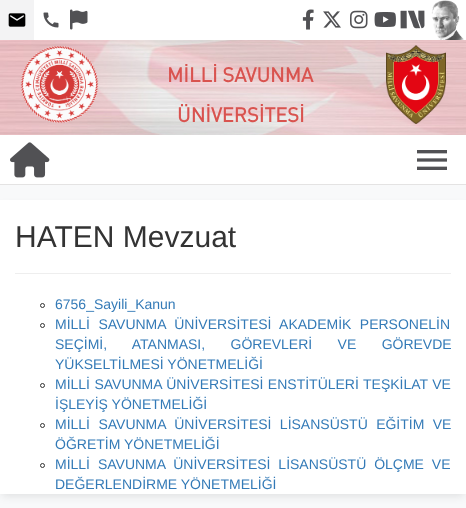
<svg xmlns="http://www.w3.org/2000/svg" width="466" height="508">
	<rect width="100%" height="100%" fill="#F8F9FA" />
	<rect x="34" y="0" width="432" height="40" fill="#FFFFFF" />
	<rect x="0" y="0" width="34" height="40" fill="#F3F3F4" />
	<image x="8" y="13" width="18" height="14" href="assets/img1.png" />
	<image x="43" y="12" width="16" height="16" href="assets/img2.png" />
	<image x="70" y="9" width="18" height="21" href="assets/img3.png" />
	<image x="302" y="9" width="12" height="21" href="assets/img4.png" />
	<image x="323" y="11" width="18" height="17" href="assets/img5.png" />
	<image x="350" y="10" width="18" height="19" href="assets/img6.png" />
	<image x="374" y="12" width="22" height="15" href="assets/img7.png" />
	<image x="400" y="10" width="25" height="19" href="assets/img8.png" />
	<image x="431" y="0" width="33" height="40" href="assets/img9.png" />
	<image x="0" y="40" width="466" height="95" href="assets/img10.png" />
	<image x="20" y="46" width="79" height="77" href="assets/img11.png" />
	<g font-family="DIN" font-size="20" font-weight="700" fill="#D9534F">
		<text x="167" y="82">MİLLİ SAVUNMA</text>
		<text x="177" y="122">ÜNİVERSİTESİ</text>
	</g>
	<image x="386" y="45" width="60" height="79" href="assets/img12.png" />
	<rect x="0" y="135" width="466" height="49" fill="#FFFFFF" />
	<rect x="0" y="184" width="466" height="1" fill="#E4E3E3" />
	<image x="10" y="142" width="40" height="36" href="assets/img13.png" />
	<image x="417" y="150" width="30" height="20" href="assets/img14.png" />
	<rect x="2" y="206" width="462" height="290" fill="#000000" fill-opacity="0.1" filter="blur(4px)" />
	<rect x="0" y="200" width="466" height="294" fill="#FFFFFF" />
	<text x="15" y="247" font-family="Liberation Sans" font-size="30" fill="#333333">HATEN Mevzuat</text>
	<rect x="15" y="273" width="436" height="1" fill="#EEEEEE" />
	<circle cx="42.5" cy="305.5" r="2" fill="none" stroke="#333333" />
	<text x="55" y="309" font-family="Liberation Sans" font-size="14" fill="#337AB7">6756_Sayili_Kanun</text>
	<circle cx="42.5" cy="325.5" r="2" fill="none" stroke="#333333" />
	<g font-family="Liberation Sans" font-size="14" fill="#337AB7">
		<text x="55" y="329" word-spacing="4.5">MİLLİ SAVUNMA ÜNİVERSİTESİ AKADEMİK PERSONELİN</text>
		<text x="55" y="349" word-spacing="21.5">SEÇİMİ, ATANMASI, GÖREVLERİ VE GÖREVDE</text>
		<text x="55" y="369">YÜKSELTİLMESİ YÖNETMELİĞİ</text>
	</g>
	<circle cx="42.5" cy="385.5" r="2" fill="none" stroke="#333333" />
	<g font-family="Liberation Sans" font-size="14" fill="#337AB7">
		<text x="55" y="389" word-spacing="0.5">MİLLİ SAVUNMA ÜNİVERSİTESİ ENSTİTÜLERİ TEŞKİLAT VE</text>
		<text x="55" y="409">İŞLEYİŞ YÖNETMELİĞİ</text>
	</g>
	<circle cx="42.5" cy="425.5" r="2" fill="none" stroke="#333333" />
	<g font-family="Liberation Sans" font-size="14" fill="#337AB7">
		<text x="55" y="429" word-spacing="4.5">MİLLİ SAVUNMA ÜNİVERSİTESİ LİSANSÜSTÜ EĞİTİM VE</text>
		<text x="55" y="449">ÖĞRETİM YÖNETMELİĞİ</text>
	</g>
	<circle cx="42.5" cy="465.5" r="2" fill="none" stroke="#333333" />
	<g font-family="Liberation Sans" font-size="14" fill="#337AB7">
		<text x="55" y="469" word-spacing="4">MİLLİ SAVUNMA ÜNİVERSİTESİ LİSANSÜSTÜ ÖLÇME VE</text>
		<text x="55" y="489">DEĞERLENDİRME YÖNETMELİĞİ</text>
	</g>
</svg>
